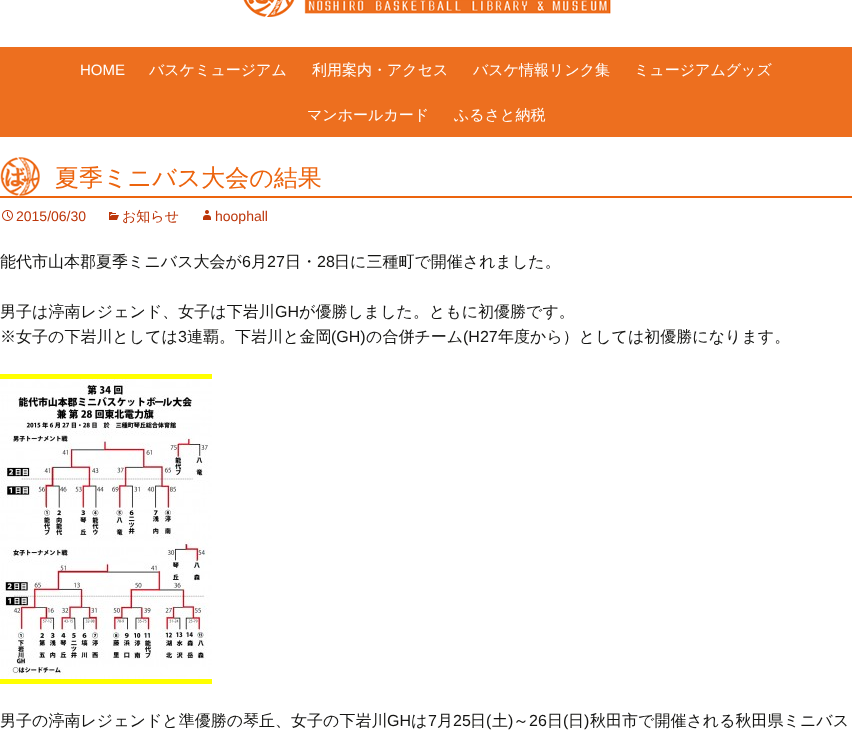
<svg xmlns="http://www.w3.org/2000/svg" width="852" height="733">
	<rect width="100%" height="100%" fill="#FFFFFF" />
	<image x="243" y="0" width="368" height="17" href="assets/img1.png" />
	<rect x="0" y="47" width="852" height="90" fill="#ED6F1F" />
	<text x="80" y="75" font-family="Liberation Sans" font-size="15" fill="#FFFFFF">HOME</text>
	<g font-family="WenQuanYi Zen Hei" font-size="15" font-weight="500" fill="#FFFFFF">
		<text x="149" y="75">バスケミュージアム</text>
		<text x="312" y="75">利用案内・アクセス</text>
		<text x="473" y="75">バスケ情報リンク集</text>
		<text x="634" y="75">ミュージアムグッズ</text>
		<text x="307" y="120">マンホールカード</text>
		<text x="454" y="120">ふるさと納税</text>
	</g>
	<image x="0" y="157" width="40" height="39" href="assets/img2.png" />
	<rect x="0" y="196" width="852" height="2" fill="#EC640E" />
	<text x="55" y="186" font-family="WenQuanYi Zen Hei" font-size="24" font-weight="500" fill="#EC640E">夏季ミニバス大会の結果</text>
	<image x="2" y="210" width="11" height="11" href="assets/img3.png" />
	<text x="16" y="221" font-family="Liberation Sans" font-size="14" fill="#BC360A">2015/06/30</text>
	<image x="109" y="212" width="10" height="8" href="assets/img4.png" />
	<text x="122" y="221" font-family="WenQuanYi Zen Hei" font-size="14" font-weight="500" fill="#BC360A">お知らせ</text>
	<image x="203" y="210" width="8" height="10" href="assets/img5.png" />
	<text x="215" y="221" font-family="Liberation Sans" font-size="14" fill="#BC360A">hoophall</text>
	<text x="0" y="267" font-family="WenQuanYi Zen Hei" font-size="16" font-weight="500" fill="#141412">能代市山本郡夏季ミニバス大会が</text>
	<text x="242" y="267" font-family="Liberation Sans" font-size="16" fill="#141412">6</text>
	<text x="251" y="267" font-family="WenQuanYi Zen Hei" font-size="16" font-weight="500" fill="#141412">月</text>
	<text x="267" y="267" font-family="Liberation Sans" font-size="16" fill="#141412">27</text>
	<text x="285" y="267" font-family="WenQuanYi Zen Hei" font-size="16" font-weight="500" fill="#141412">日・</text>
	<text x="317" y="267" font-family="Liberation Sans" font-size="16" fill="#141412">28</text>
	<g font-family="WenQuanYi Zen Hei" font-size="16" font-weight="500" fill="#141412">
		<text x="334" y="267">日に三種町で開催されました。</text>
		<text x="0" y="317">男子は渟南レジェンド、女子は下岩川</text>
	</g>
	<text x="275" y="317" font-family="Liberation Sans" font-size="16" fill="#141412">GH</text>
	<g font-family="WenQuanYi Zen Hei" font-size="16" font-weight="500" fill="#141412">
		<text x="299" y="317">が優勝しました。ともに初優勝です。</text>
		<text x="0" y="342">※女子の下岩川としては</text>
	</g>
	<text x="178" y="342" font-family="Liberation Sans" font-size="16" fill="#141412">3</text>
	<text x="187" y="342" font-family="WenQuanYi Zen Hei" font-size="16" font-weight="500" fill="#141412">連覇。下岩川と金岡</text>
	<text x="331" y="342" font-family="Liberation Sans" font-size="16" fill="#141412">(GH)</text>
	<text x="366" y="342" font-family="WenQuanYi Zen Hei" font-size="16" font-weight="500" fill="#141412">の合併チーム</text>
	<text x="463" y="342" font-family="Liberation Sans" font-size="16" fill="#141412">(H27</text>
	<text x="498" y="342" font-family="WenQuanYi Zen Hei" font-size="16" font-weight="500" fill="#141412">年度から）としては初優勝になります。</text>
	<rect x="0" y="374" width="212" height="310" fill="#FFFF00" />
	<image x="0" y="379" width="212" height="300" href="assets/img6.png" />
	<text x="0" y="726" font-family="WenQuanYi Zen Hei" font-size="16" font-weight="500" fill="#141412">男子の渟南レジェンドと準優勝の琴丘、女子の下岩川</text>
	<text x="387" y="726" font-family="Liberation Sans" font-size="16" fill="#141412">GH</text>
	<text x="411" y="726" font-family="WenQuanYi Zen Hei" font-size="16" font-weight="500" fill="#141412">は</text>
	<text x="428" y="726" font-family="Liberation Sans" font-size="16" fill="#141412">7</text>
	<text x="437" y="726" font-family="WenQuanYi Zen Hei" font-size="16" font-weight="500" fill="#141412">月</text>
	<text x="453" y="726" font-family="Liberation Sans" font-size="16" fill="#141412">25</text>
	<text x="470" y="726" font-family="WenQuanYi Zen Hei" font-size="16" font-weight="500" fill="#141412">日</text>
	<text x="486" y="726" font-family="Liberation Sans" font-size="16" fill="#141412">(</text>
	<text x="492" y="726" font-family="WenQuanYi Zen Hei" font-size="16" font-weight="500" fill="#141412">土</text>
	<text x="508" y="726" font-family="Liberation Sans" font-size="16" fill="#141412">)</text>
	<text x="513" y="726" font-family="WenQuanYi Zen Hei" font-size="16" font-weight="500" fill="#141412">～</text>
	<text x="529" y="726" font-family="Liberation Sans" font-size="16" fill="#141412">26</text>
	<text x="547" y="726" font-family="WenQuanYi Zen Hei" font-size="16" font-weight="500" fill="#141412">日</text>
	<text x="563" y="726" font-family="Liberation Sans" font-size="16" fill="#141412">(</text>
	<text x="568" y="726" font-family="WenQuanYi Zen Hei" font-size="16" font-weight="500" fill="#141412">日</text>
	<text x="584" y="726" font-family="Liberation Sans" font-size="16" fill="#141412">)</text>
	<text x="590" y="726" font-family="WenQuanYi Zen Hei" font-size="16" font-weight="500" fill="#141412">秋田市で開催される秋田県ミニバス</text>
</svg>
